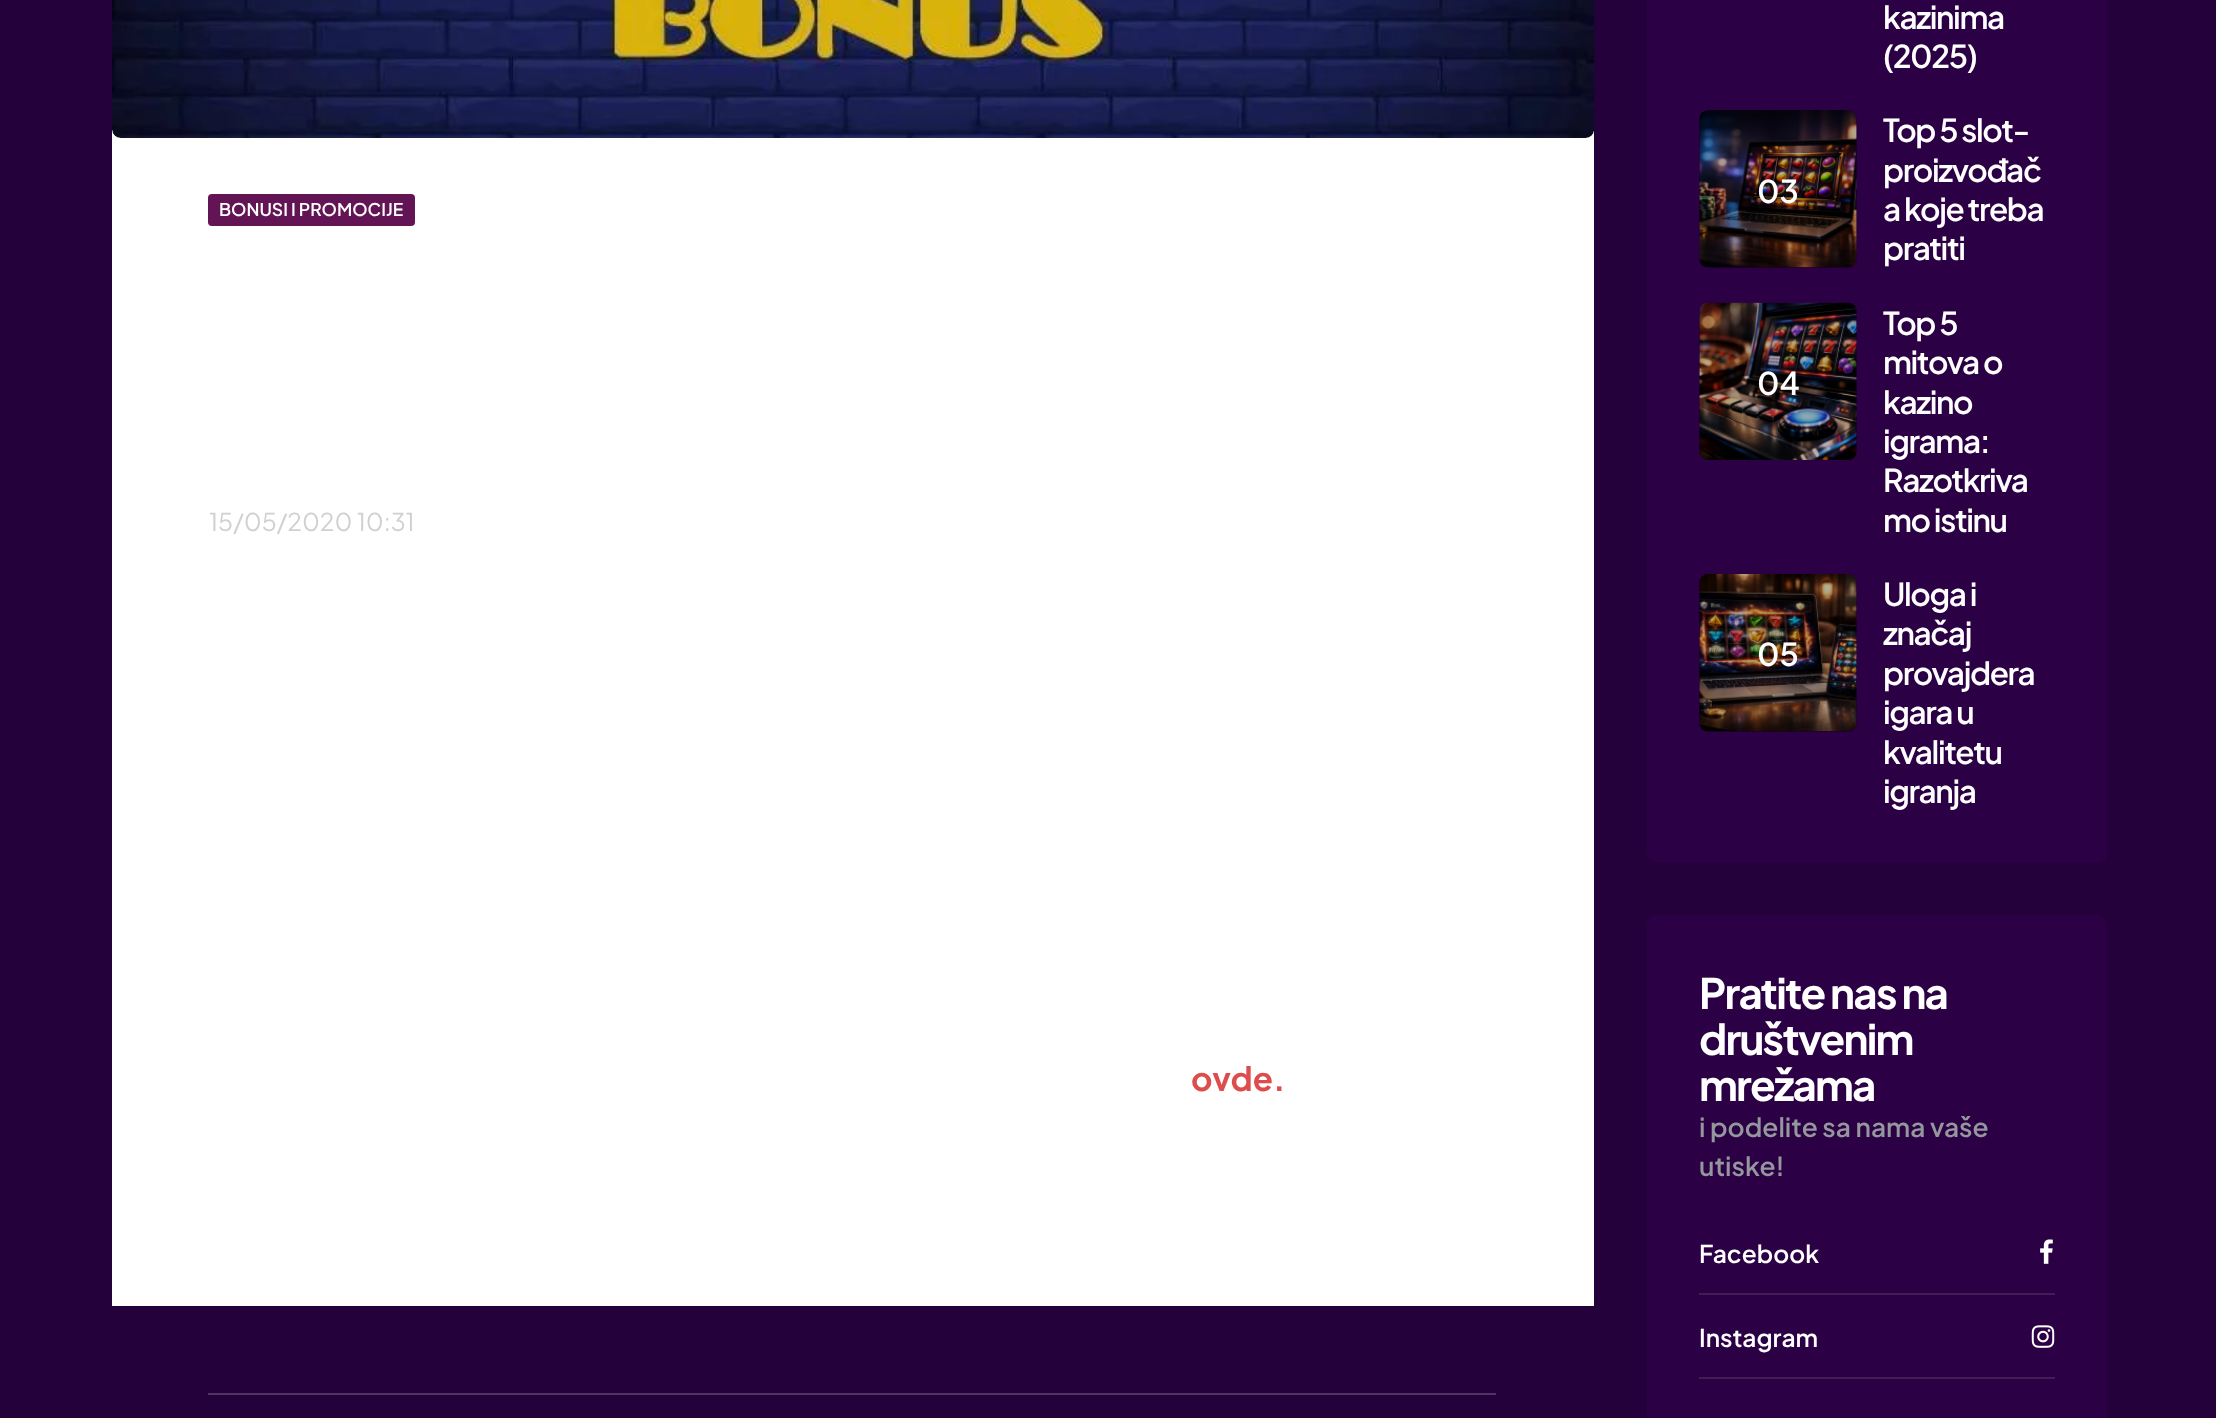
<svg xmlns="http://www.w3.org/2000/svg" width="2216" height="1418">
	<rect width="100%" height="100%" fill="#24013A" />
	<rect x="112" y="130" width="1482" height="1176" fill="#FFFFFF" />
	<image x="112" y="0" width="1482" height="138" href="assets/img1.png" />
	<rect x="208" y="194" width="207" height="32" rx="4" fill="#631455" />
	<text x="219" y="216" font-family="Plus Jakarta Sans" font-size="17.5" font-weight="600" fill="#FFFFFF">BONUSI I PROMOCIJE</text>
	<text x="209" y="531" font-family="Plus Jakarta Sans" font-size="24.5" fill="#CFD0D2">15/05/2020 10:31</text>
	<text x="1191" y="1091" font-family="Plus Jakarta Sans" font-size="33" font-weight="700" fill="#DD4D4D">ovde.</text>
	<rect x="208" y="1393" width="1288" height="2" fill="#503461" />
	<rect x="1647" y="-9" width="460" height="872" rx="9" fill="#2C0044" />
	<g font-family="Plus Jakarta Sans" font-size="31.5" font-weight="600" letter-spacing="-1.4" fill="#FFFFFF">
		<text x="1883" y="29">kazinima</text>
		<text x="1883" y="68">(2025)</text>
	</g>
	<image x="1699" y="110" width="158" height="158" href="assets/img2.png" />
	<rect x="1699" y="110" width="158" height="158" rx="9" fill="#000000" fill-opacity="0.3" />
	<text x="1757" y="203" font-family="Plus Jakarta Sans" font-size="31.5" font-weight="600" fill="#FFFFFF">03</text>
	<g font-family="Plus Jakarta Sans" font-size="31.5" font-weight="600" letter-spacing="-1.4" fill="#FFFFFF">
		<text x="1883" y="142">Top 5 slot-</text>
		<text x="1883" y="182">proizvođač</text>
		<text x="1883" y="221">a koje treba</text>
		<text x="1883" y="260">pratiti</text>
	</g>
	<image x="1699" y="302" width="158" height="158" href="assets/img3.png" />
	<rect x="1699" y="303" width="158" height="157" rx="9" fill="#000000" fill-opacity="0.3" />
	<text x="1757" y="395" font-family="Plus Jakarta Sans" font-size="31.5" font-weight="600" fill="#FFFFFF">04</text>
	<g font-family="Plus Jakarta Sans" font-size="31.5" font-weight="600" letter-spacing="-1.4" fill="#FFFFFF">
		<text x="1883" y="335">Top 5</text>
		<text x="1883" y="374">mitova o</text>
		<text x="1883" y="414">kazino</text>
		<text x="1883" y="453">igrama:</text>
		<text x="1883" y="492">Razotkriva</text>
		<text x="1883" y="532">mo istinu</text>
	</g>
	<image x="1699" y="574" width="158" height="158" href="assets/img4.png" />
	<rect x="1699" y="574" width="158" height="158" rx="9" fill="#000000" fill-opacity="0.3" />
	<text x="1757" y="666" font-family="Plus Jakarta Sans" font-size="31.5" font-weight="600" fill="#FFFFFF">05</text>
	<g font-family="Plus Jakarta Sans" font-size="31.5" font-weight="600" letter-spacing="-1.4" fill="#FFFFFF">
		<text x="1883" y="606">Uloga i</text>
		<text x="1883" y="645">značaj</text>
		<text x="1883" y="685">provajdera</text>
		<text x="1883" y="724">igara u</text>
		<text x="1883" y="764">kvalitetu</text>
		<text x="1883" y="803">igranja</text>
	</g>
	<rect x="1647" y="915" width="460" height="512" rx="9" fill="#2C0044" />
	<g font-family="Plus Jakarta Sans" font-size="42" font-weight="700" letter-spacing="-1.75" fill="#FFFFFF">
		<text x="1699" y="1009">Pratite nas na</text>
		<text x="1699" y="1055">društvenim</text>
		<text x="1699" y="1101">mrežama</text>
	</g>
	<g font-family="Plus Jakarta Sans" font-size="26.25" font-weight="600" fill="#94979E">
		<text x="1699" y="1137">i podelite sa nama vaše</text>
		<text x="1699" y="1176">utiske!</text>
	</g>
	<rect x="1699" y="1293" width="356" height="2" fill="#411E56" />
	<text x="1699" y="1263" font-family="Plus Jakarta Sans" font-size="24.5" font-weight="600" fill="#FFFFFF">Facebook</text>
	<image x="2040" y="1239" width="13" height="25" href="assets/img5.png" />
	<rect x="1699" y="1377" width="356" height="2" fill="#411E56" />
	<text x="1699" y="1347" font-family="Plus Jakarta Sans" font-size="24.5" font-weight="600" fill="#FFFFFF">Instagram</text>
	<image x="2031" y="1325" width="24" height="23" href="assets/img6.png" />
</svg>
